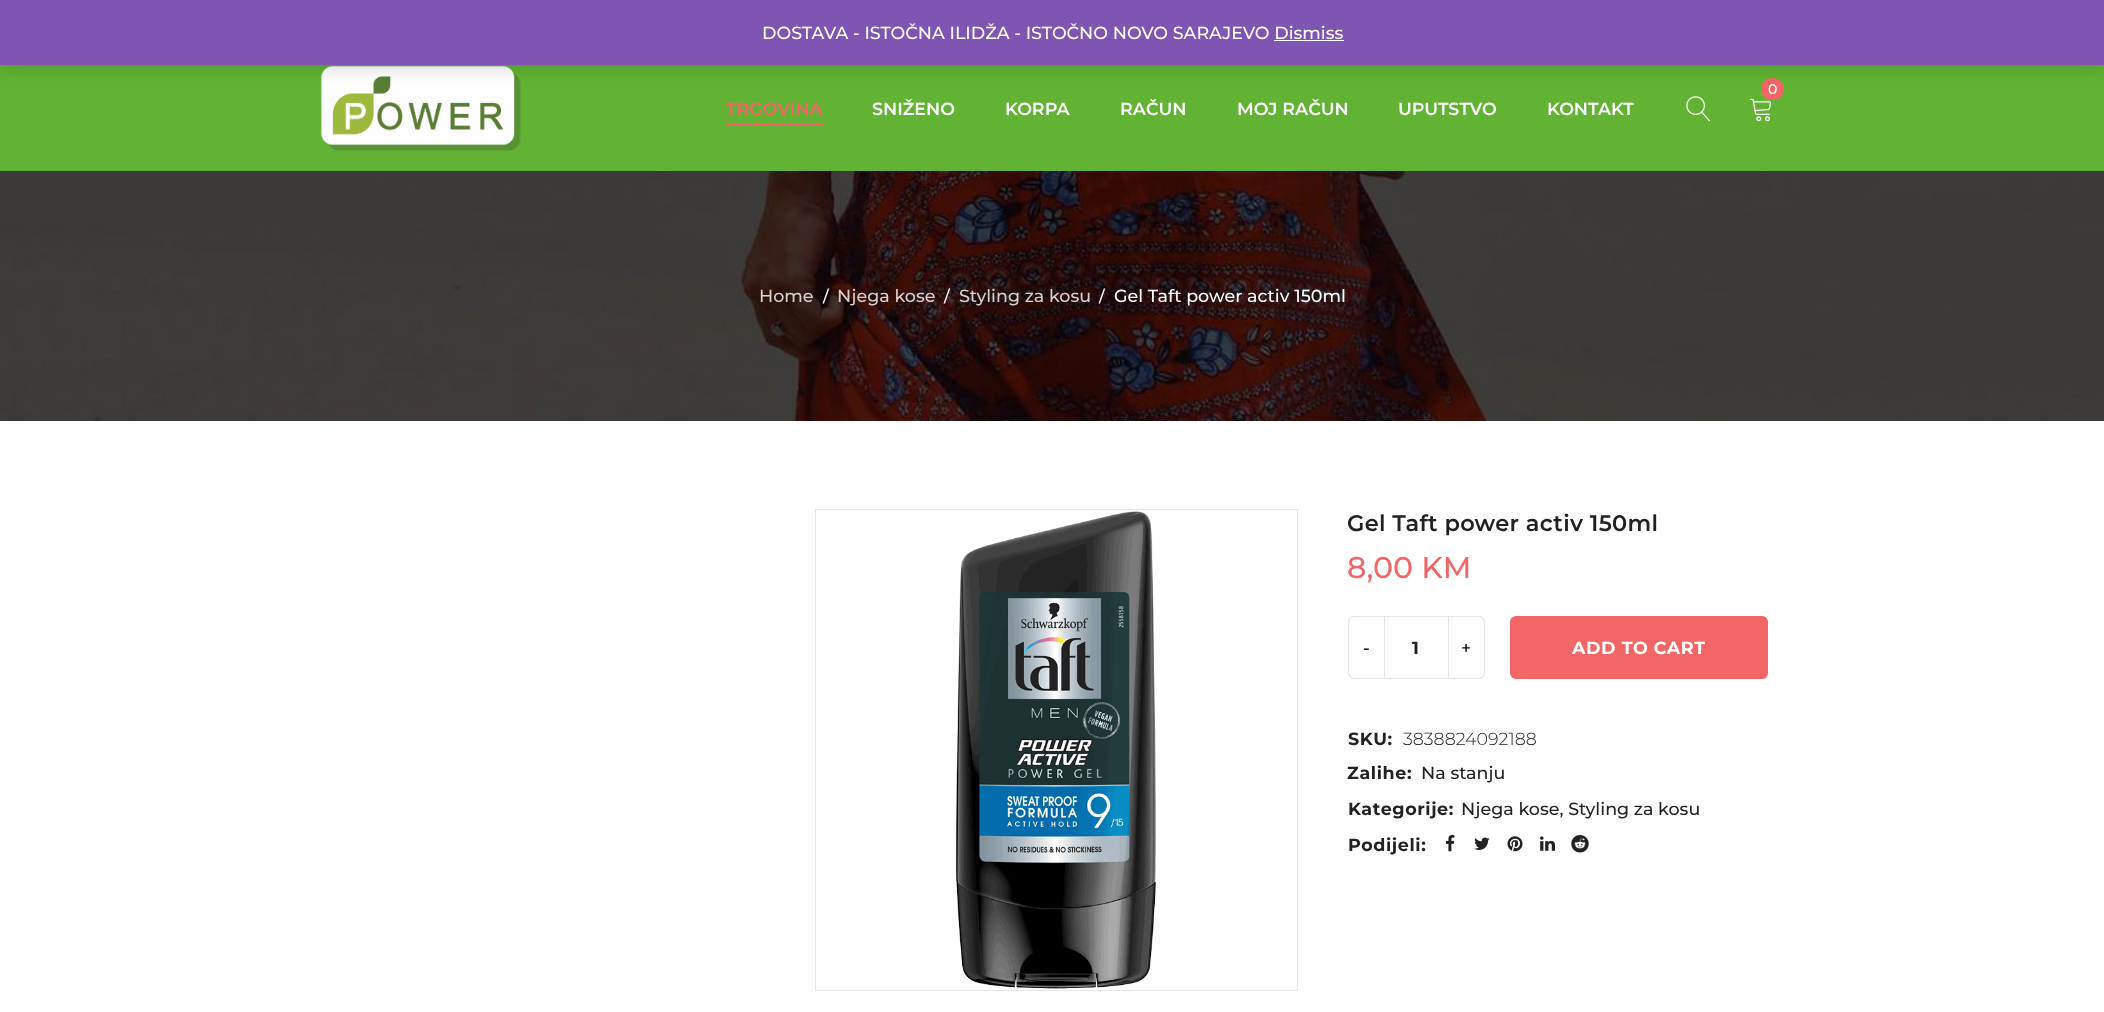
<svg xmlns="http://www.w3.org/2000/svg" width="2104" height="1012">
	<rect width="100%" height="100%" fill="#FFFFFF" />
	<rect x="0" y="65" width="2104" height="106" fill="#62B333" />
	<image x="321" y="66" width="200" height="85" href="assets/img1.png" />
	<image x="1750" y="98" width="21" height="24" href="assets/img2.png" />
	<rect x="1761" y="78" width="23" height="22" rx="11" fill="#F26667" />
	<rect x="0" y="1" width="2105" height="65" fill="#000000" fill-opacity="0.2" filter="blur(9px)" />
	<rect x="0" y="0" width="2104" height="65" fill="#7F54B3" />
	<text x="762" y="39" font-family="Montserrat" font-size="17.5" font-weight="500" fill="#FFFFFF">DOSTAVA - ISTOČNA ILIDŽA - ISTOČNO NOVO SARAJEVO Dismiss</text>
	<rect x="1274" y="40" width="70" height="1" fill="#FFFFFF" />
	<text x="1768" y="94" font-family="Montserrat" font-size="14" font-weight="500" fill="#FFFFFF">0</text>
	<image x="1686" y="96" width="24" height="26" href="assets/img3.png" />
	<text x="726" y="115" font-family="Montserrat" font-size="17.5" font-weight="600" fill="#F26667">TRGOVINA</text>
	<rect x="726" y="124" width="97" height="1" fill="#F26667" />
	<g font-family="Montserrat" font-size="17.5" font-weight="600" fill="#FFFFFF">
		<text x="872" y="115">SNIŽENO</text>
		<text x="1005" y="115">KORPA</text>
		<text x="1120" y="115">RAČUN</text>
		<text x="1237" y="115">MOJ RAČUN</text>
		<text x="1398" y="115">UPUTSTVO</text>
		<text x="1547" y="115">KONTAKT</text>
	</g>
	<image x="0" y="171" width="2104" height="250" href="assets/img4.png" />
	<text x="759" y="302" font-family="Montserrat" font-size="17.5" font-weight="500" fill="#D5D1CF">Home</text>
	<text x="823" y="302" font-family="Montserrat" font-size="16" font-weight="500" fill="#FFFFFF">/</text>
	<text x="837" y="302" font-family="Montserrat" font-size="17.5" font-weight="500" fill="#D5D1CF">Njega kose</text>
	<text x="944" y="302" font-family="Montserrat" font-size="16" font-weight="500" fill="#FFFFFF">/</text>
	<text x="959" y="302" font-family="Montserrat" font-size="17.5" font-weight="500" fill="#D5D1CF">Styling za kosu</text>
	<text x="1099" y="302" font-family="Montserrat" font-size="16" font-weight="500" fill="#FFFFFF">/</text>
	<text x="1114" y="302" font-family="Montserrat" font-size="17.5" font-weight="500" fill="#FFFFFF">Gel Taft power activ 150ml</text>
	<rect x="815.5" y="509.5" width="482" height="481" fill="none" stroke="#E5E5E5" />
	<image x="955" y="511" width="201" height="478" href="assets/img5.png" />
	<text x="1347" y="531" font-family="Montserrat" font-size="22.5" font-weight="600" letter-spacing="0.3" fill="#222222">Gel Taft power activ 150ml</text>
	<text x="1347" y="578" font-family="Montserrat" font-size="30" font-weight="500" fill="#F26667">8,00 KM</text>
	<rect x="1348.5" y="616.5" width="136" height="62" rx="5.5" fill="none" stroke="#E5E5E5" />
	<path d="M1354 616.5H1384.5V678.5H1354C1351 678.5 1348.5 676 1348.5 673V622C1348.5 619 1351 616.5 1354 616.5Z" fill="none" stroke="#E5E5E5" />
	<text x="1363" y="654" font-family="Montserrat" font-size="17.5" font-weight="500" fill="#000000">-</text>
	<text x="1412" y="654" font-family="Montserrat" font-size="17.5" font-weight="700" letter-spacing="0.6" fill="#222222">1</text>
	<path d="M1448.5 616.5H1479C1482 616.5 1484.5 619 1484.5 622V673C1484.5 676 1482 678.5 1479 678.5H1448.5Z" fill="none" stroke="#E5E5E5" />
	<text x="1461" y="654" font-family="Montserrat" font-size="17.5" font-weight="500" fill="#000000">+</text>
	<rect x="1510" y="616" width="258" height="63" rx="6" fill="#F26667" />
	<text x="1572" y="654" font-family="Montserrat" font-size="17.5" font-weight="700" letter-spacing="0.6" fill="#FFFFFF">ADD TO CART</text>
	<text x="1348" y="745" font-family="Montserrat" font-size="17.5" font-weight="700" letter-spacing="0.6" fill="#222222">SKU:</text>
	<text x="1403" y="745" font-family="Montserrat" font-size="17.5" font-weight="300" fill="#222222">3838824092188</text>
	<text x="1347" y="779" font-family="Montserrat" font-size="17.5" font-weight="700" letter-spacing="0.6" fill="#222222">Zalihe:</text>
	<text x="1421" y="779" font-family="Montserrat" font-size="17.5" font-weight="500" fill="#222222">Na stanju</text>
	<text x="1348" y="815" font-family="Montserrat" font-size="17.5" font-weight="700" letter-spacing="0.6" fill="#222222">Kategorije:</text>
	<text x="1461" y="815" font-family="Montserrat" font-size="17.5" font-weight="500" fill="#222222">Njega kose, Styling za kosu</text>
	<text x="1348" y="851" font-family="Montserrat" font-size="17.5" font-weight="700" letter-spacing="0.6" fill="#222222">Podijeli:</text>
	<image x="1445" y="835" width="10" height="17" href="assets/img6.png" />
	<image x="1474" y="837" width="16" height="13" href="assets/img7.png" />
	<image x="1507" y="836" width="16" height="16" href="assets/img8.png" />
	<image x="1540" y="836" width="15" height="15" href="assets/img9.png" />
	<image x="1571" y="835" width="18" height="18" href="assets/img10.png" />
</svg>
